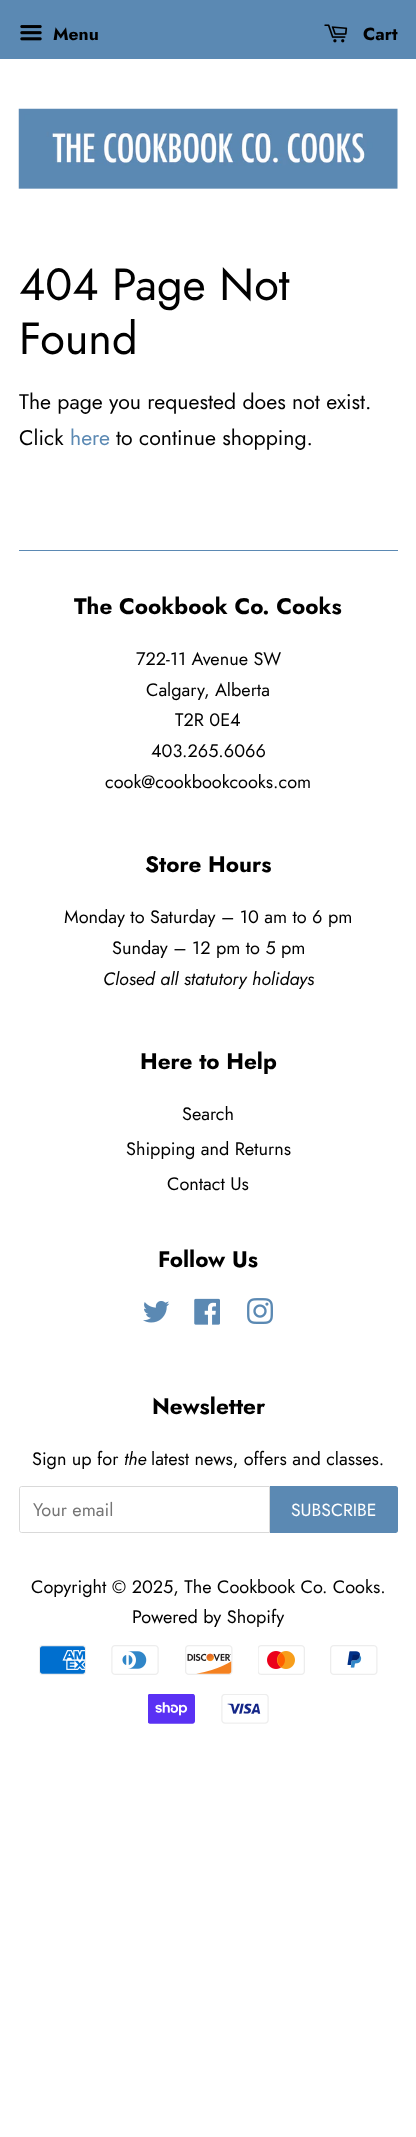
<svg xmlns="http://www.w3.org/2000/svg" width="416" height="2137">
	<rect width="100%" height="100%" fill="#FFFFFF" />
	<rect x="0" y="0" width="416" height="59" fill="#5B89B3" />
	<image x="20" y="25" width="22" height="16" href="assets/img1.png" />
	<text x="53" y="40" font-family="Jost" font-size="17.5" font-weight="700" fill="#000000">Menu</text>
	<image x="324" y="24" width="24" height="19" href="assets/img2.png" />
	<text x="363" y="40" font-family="Jost" font-size="17.5" font-weight="700" fill="#000000">Cart</text>
	<image x="18" y="108" width="380" height="81" href="assets/img3.png" />
	<g font-family="Jost" font-size="45" fill="#000000">
		<text x="19" y="300">404 Page Not</text>
		<text x="19" y="354">Found</text>
	</g>
	<g font-family="Jost" font-size="21.25" fill="#000000">
		<text x="19" y="409">The page you requested does not exist.</text>
		<text x="19" y="445">Click</text>
	</g>
	<text x="70" y="445" font-family="Jost" font-size="21.25" fill="#5B89B3">here</text>
	<text x="116" y="445" font-family="Jost" font-size="21.25" fill="#000000">to continue shopping.</text>
	<rect x="19" y="550" width="379" height="1" fill="#5B89B3" />
	<text x="74" y="614" font-family="Jost" font-size="22.5" font-weight="700" fill="#000000">The Cookbook Co. Cooks</text>
	<g font-family="Jost" font-size="18.1" fill="#000000">
		<text x="136" y="665">722-11 Avenue SW</text>
		<text x="146" y="696">Calgary, Alberta</text>
		<text x="175" y="726">T2R 0E4</text>
		<text x="151" y="757">403.265.6066</text>
		<text x="105" y="788">cook@cookbookcooks.com</text>
	</g>
	<text x="145" y="872" font-family="Jost" font-size="22.5" font-weight="700" fill="#000000">Store Hours</text>
	<g font-family="Jost" font-size="18.1" fill="#000000">
		<text x="64" y="923">Monday to Saturday – 10 am to 6 pm</text>
		<text x="112" y="954">Sunday – 12 pm to 5 pm</text>
	</g>
	<text x="103" y="985" font-family="Jost" font-size="18.1" font-style="italic" fill="#000000">Closed all statutory holidays</text>
	<text x="140" y="1069" font-family="Jost" font-size="22.5" font-weight="700" fill="#000000">Here to Help</text>
	<g font-family="Jost" font-size="18.1" fill="#000000">
		<text x="182" y="1120">Search</text>
		<text x="126" y="1155">Shipping and Returns</text>
		<text x="167" y="1190">Contact Us</text>
	</g>
	<text x="158" y="1267" font-family="Jost" font-size="22.5" font-weight="700" fill="#000000">Follow Us</text>
	<image x="143" y="1301" width="27" height="22" href="assets/img4.png" />
	<image x="194" y="1298" width="26" height="27" href="assets/img5.png" />
	<image x="247" y="1298" width="26" height="26" href="assets/img6.png" />
	<text x="152" y="1414" font-family="Jost" font-size="22.5" font-weight="700" fill="#000000">Newsletter</text>
	<text x="32" y="1465" font-family="Jost" font-size="18.1" fill="#000000">Sign up for</text>
	<text x="124" y="1465" font-family="Jost" font-size="18.1" font-style="italic" fill="#000000">the</text>
	<text x="151" y="1465" font-family="Jost" font-size="18.1" fill="#000000">latest news, offers and classes.</text>
	<path d="M21.5 1486.5H269.5V1532.5H21.5C20.5 1532.5 19.5 1531.5 19.5 1530.5V1488.5C19.5 1487.5 20.5 1486.5 21.5 1486.5Z" fill="none" stroke="#D9D9D9" />
	<text x="33" y="1516" font-family="Jost" font-size="18.1" fill="#757575">Your email</text>
	<path d="M270 1486H395.5C397 1486 398 1487 398 1488.5V1530.5C398 1532 397 1533 395.5 1533H270Z" fill="#5B89B3" />
	<text x="291" y="1516" font-family="Jost" font-size="17.5" fill="#FFFFFF">SUBSCRIBE</text>
	<g font-family="Jost" font-size="18.1" fill="#000000">
		<text x="31" y="1593">Copyright © 2025, The Cookbook Co. Cooks.</text>
		<text x="132" y="1623">Powered by Shopify</text>
	</g>
	<image x="39" y="1645" width="47" height="30" href="assets/img7.png" />
	<image x="111" y="1645" width="48" height="30" href="assets/img8.png" />
	<image x="185" y="1645" width="48" height="30" href="assets/img9.png" />
	<image x="258" y="1645" width="47" height="30" href="assets/img10.png" />
	<image x="330" y="1645" width="48" height="30" href="assets/img11.png" />
	<image x="148" y="1694" width="47" height="30" href="assets/img12.png" />
	<image x="221" y="1694" width="48" height="30" href="assets/img13.png" />
</svg>
